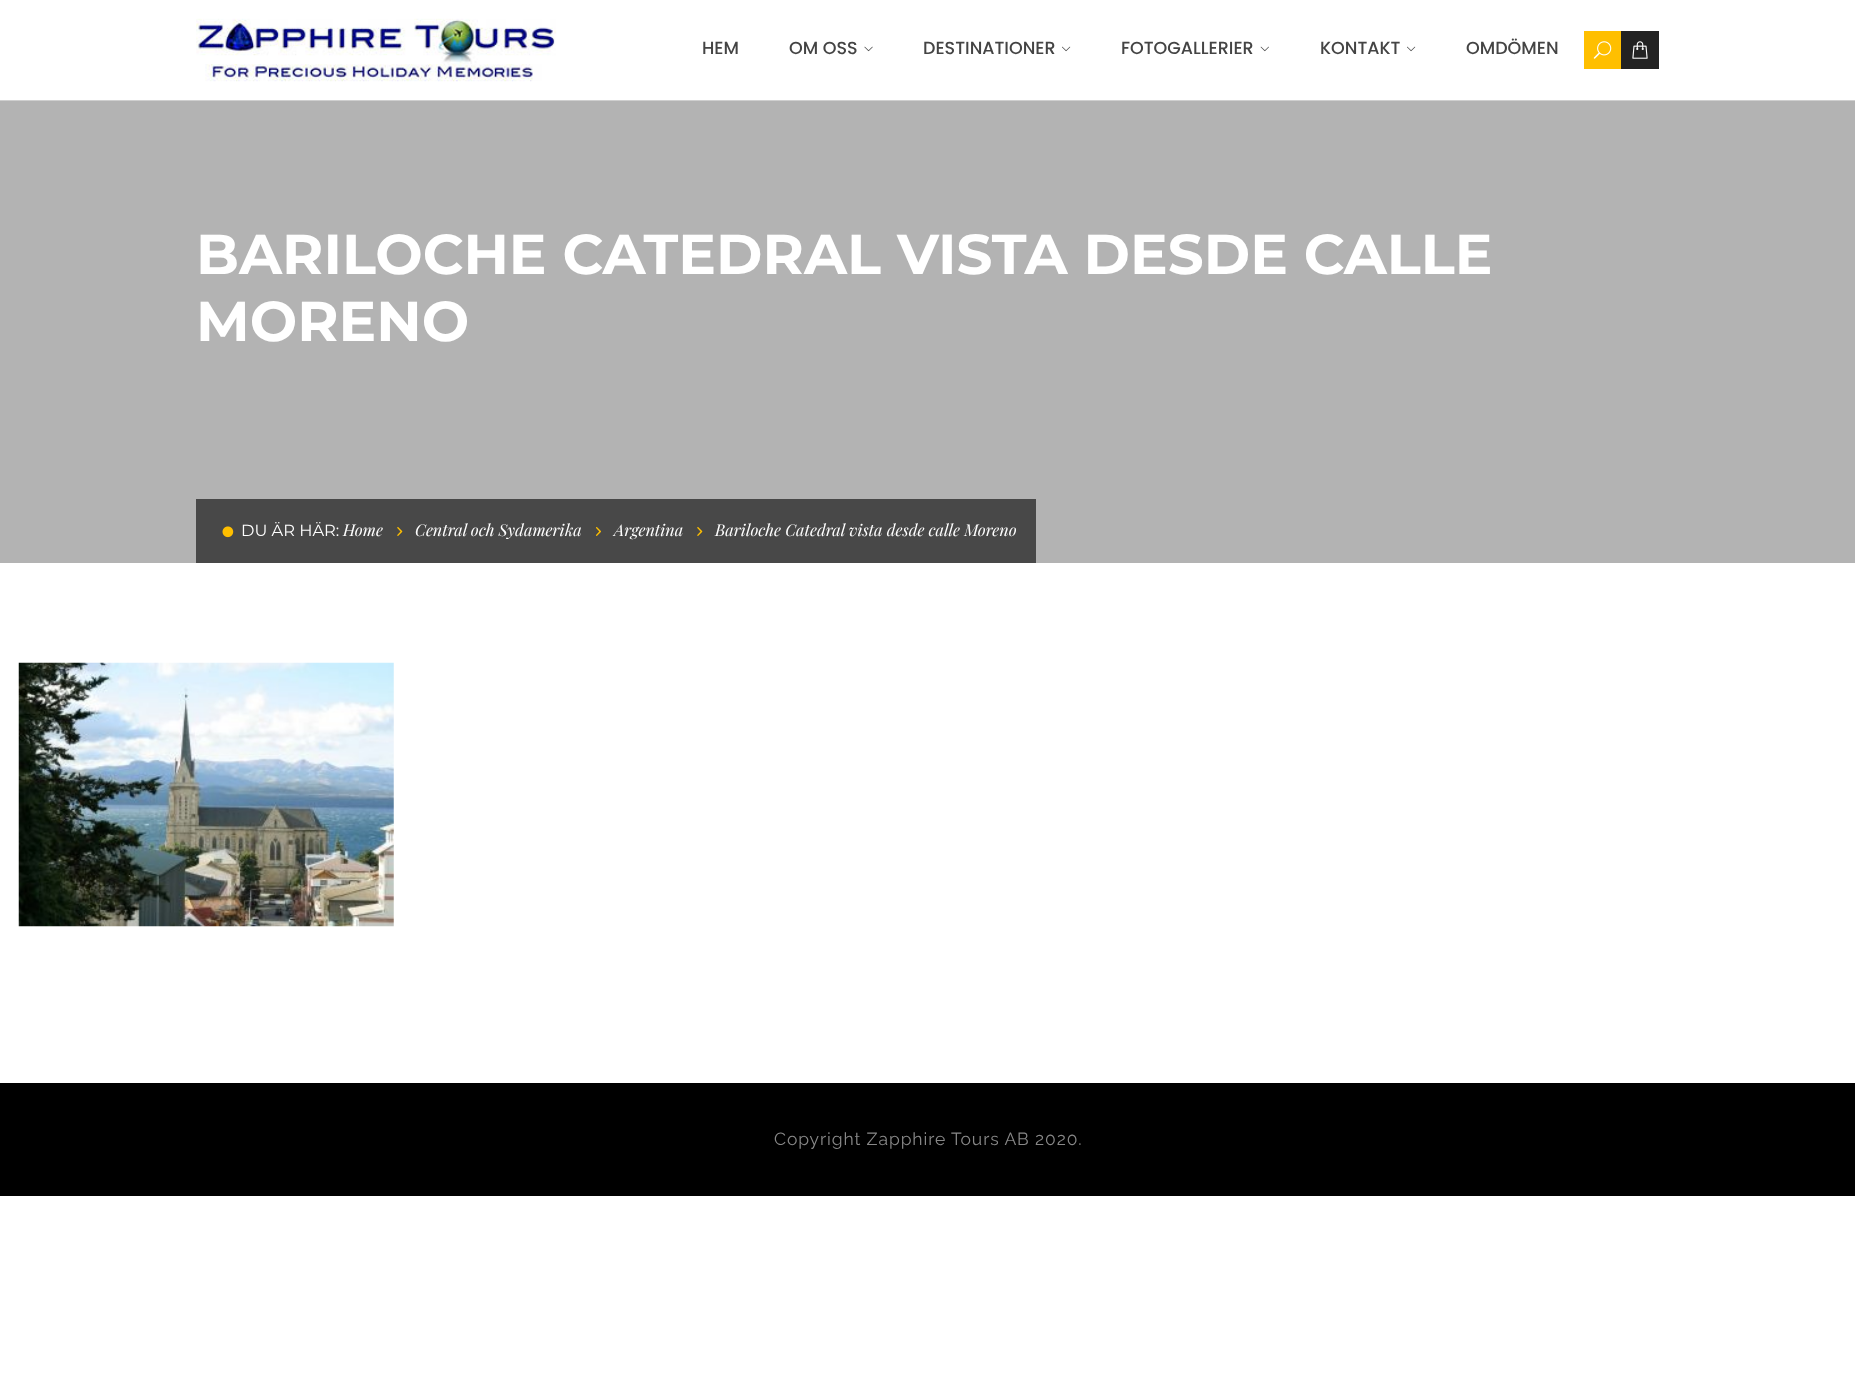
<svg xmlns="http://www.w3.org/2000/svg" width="1855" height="1391">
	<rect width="100%" height="100%" fill="#FFFFFF" />
	<rect x="0" y="100" width="1855" height="1" fill="#CFCFCF" />
	<image x="196" y="18" width="361" height="64" href="assets/img1.png" />
	<g font-family="Poppins" font-size="17.5" font-weight="500" fill="#444444">
		<text x="702" y="54">HEM</text>
		<text x="789" y="54">OM OSS</text>
	</g>
	<image x="864" y="46" width="9" height="6" href="assets/img2.png" />
	<text x="923" y="54" font-family="Poppins" font-size="17.5" font-weight="500" fill="#444444">DESTINATIONER</text>
	<image x="1062" y="46" width="9" height="6" href="assets/img3.png" />
	<text x="1121" y="54" font-family="Poppins" font-size="17.5" font-weight="500" fill="#444444">FOTOGALLERIER</text>
	<image x="1260" y="46" width="9" height="6" href="assets/img4.png" />
	<text x="1320" y="54" font-family="Poppins" font-size="17.5" font-weight="500" fill="#444444">KONTAKT</text>
	<image x="1407" y="46" width="9" height="6" href="assets/img3.png" />
	<text x="1466" y="54" font-family="Poppins" font-size="17.5" font-weight="500" fill="#444444">OMDÖMEN</text>
	<rect x="1584" y="31" width="37" height="38" fill="#FFBF00" />
	<image x="1593" y="41" width="19" height="18" href="assets/img5.png" />
	<rect x="1621" y="31" width="38" height="38" fill="#222222" />
	<image x="1632" y="41" width="16" height="18" href="assets/img6.png" />
	<rect x="0" y="101" width="1855" height="462" fill="#B3B3B3" />
	<g font-family="Montserrat" font-size="56.25" font-weight="700" fill="#FFFFFF">
		<text x="196" y="274">BARILOCHE CATEDRAL VISTA DESDE CALLE</text>
		<text x="196" y="341">MORENO</text>
	</g>
	<rect x="196" y="499" width="840" height="64" fill="#484848" />
	<image x="222" y="526" width="12" height="12" href="assets/img7.png" />
	<text x="241" y="536" font-family="Montserrat" font-size="16.25" fill="#FFFFFF">DU ÄR HÄR:</text>
	<text x="343" y="536" font-family="Playfair Display" font-size="16.25" font-style="italic" fill="#FFFFFF">Home</text>
	<image x="397" y="527" width="6" height="9" href="assets/img8.png" />
	<text x="415" y="536" font-family="Playfair Display" font-size="16.25" font-style="italic" fill="#FFFFFF">Central och Sydamerika</text>
	<image x="596" y="527" width="5" height="9" href="assets/img9.png" />
	<text x="614" y="536" font-family="Playfair Display" font-size="16.25" font-style="italic" fill="#FFFFFF">Argentina</text>
	<image x="697" y="527" width="6" height="9" href="assets/img8.png" />
	<text x="715" y="536" font-family="Playfair Display" font-size="16.25" font-style="italic" fill="#FFFFFF">Bariloche Catedral vista desde calle Moreno</text>
	<image x="18" y="662" width="376" height="265" href="assets/img10.png" />
	<rect x="0" y="1083" width="1855" height="113" fill="#000000" />
	<text x="774" y="1145" font-family="Raleway" font-size="17.5" letter-spacing="0.9" fill="#888888">Copyright Zapphire Tours AB 2020.</text>
</svg>
